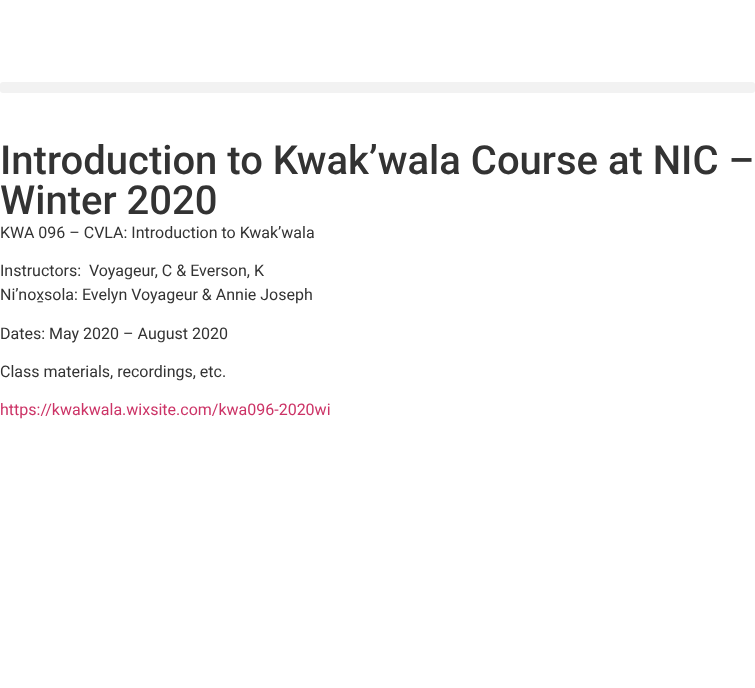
<svg xmlns="http://www.w3.org/2000/svg" width="755" height="688">
	<rect width="100%" height="100%" fill="#FFFFFF" />
	<rect x="0" y="82" width="755" height="11" rx="3" fill="#F2F2F2" />
	<g font-family="Roboto" font-size="40" font-weight="500" fill="#333333">
		<text x="0" y="174">Introduction to Kwak’wala Course at NIC –</text>
		<text x="0" y="214">Winter 2020</text>
	</g>
	<g font-family="Roboto" font-size="16" fill="#333333">
		<text x="0" y="238">KWA 096 – CVLA: Introduction to Kwak’wala</text>
		<text x="0" y="276" xml:space="preserve">Instructors:  Voyageur, C &amp; Everson, K</text>
	</g>
	<text x="0" y="300" font-family="'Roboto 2'" font-size="16" fill="#333333">Ni’nox̱sola: Evelyn Voyageur &amp; Annie Joseph</text>
	<g font-family="Roboto" font-size="16" fill="#333333">
		<text x="0" y="339">Dates: May 2020 – August 2020</text>
		<text x="0" y="377">Class materials, recordings, etc.</text>
	</g>
	<text x="0" y="415" font-family="Roboto" font-size="16" fill="#CC3366">https://kwakwala.wixsite.com/kwa096-2020wi</text>
</svg>
